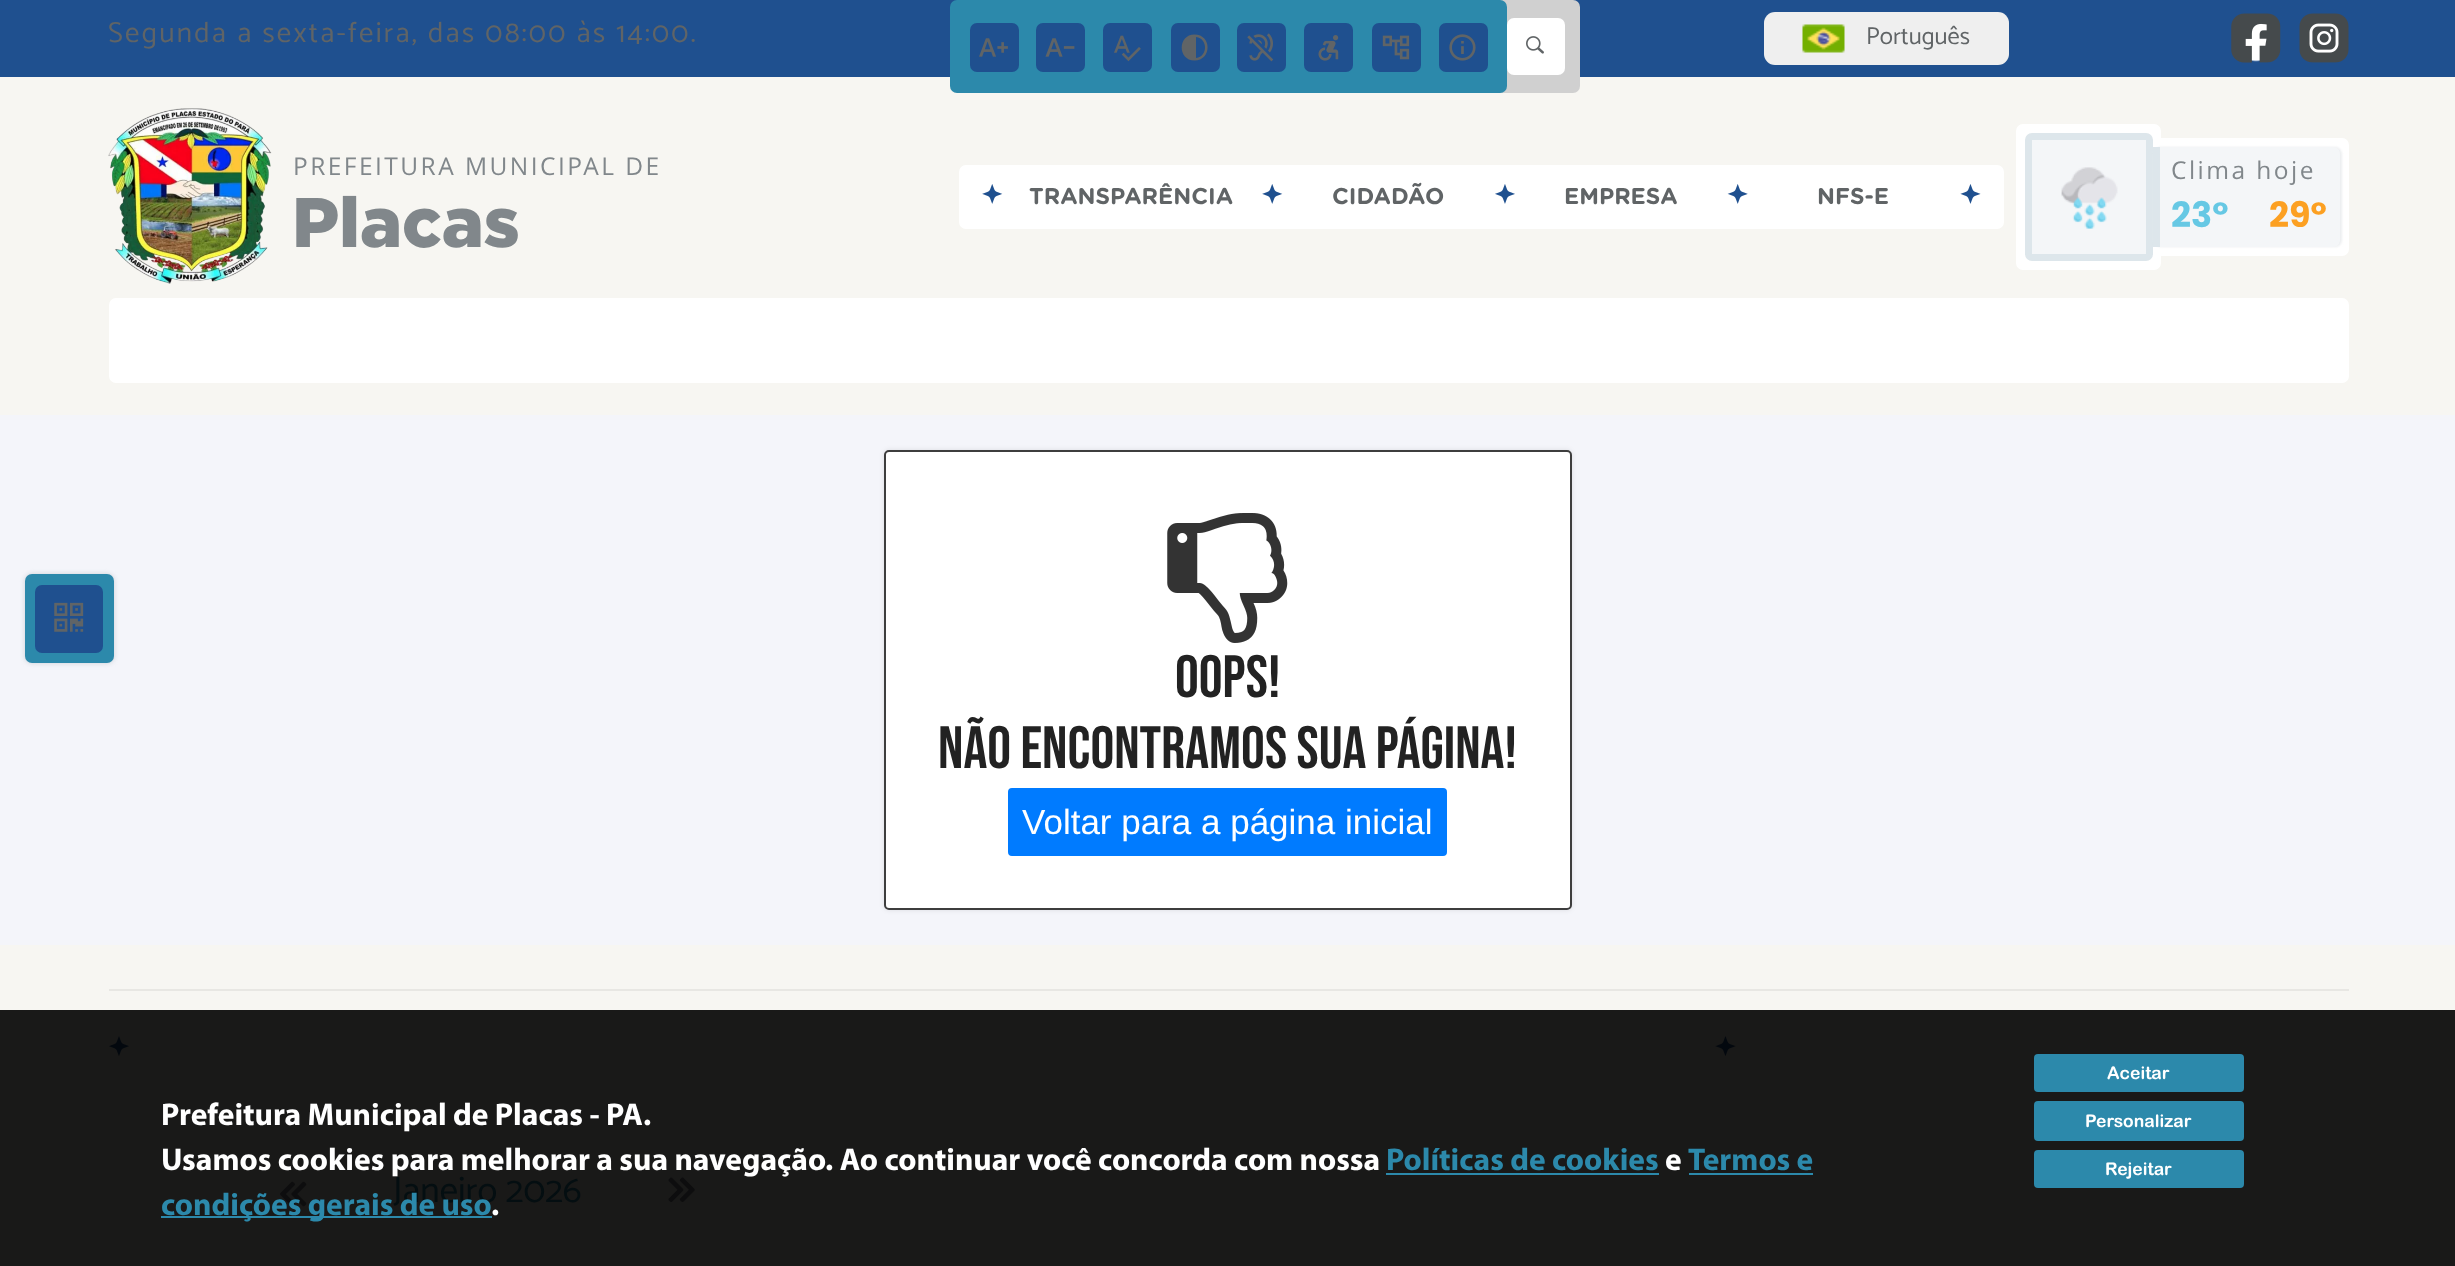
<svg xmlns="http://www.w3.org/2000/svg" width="2455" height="1266">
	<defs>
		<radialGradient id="g1" gradientUnits="userSpaceOnUse" cx="2256" cy="39" r="35"><stop offset="0.6" stop-color="#FFFFFF" /><stop offset="0.65" stop-color="#1F508F" /></radialGradient>
		<radialGradient id="g2" gradientUnits="userSpaceOnUse" cx="2324" cy="39" r="35"><stop offset="0.6" stop-color="#FFFFFF" /><stop offset="0.65" stop-color="#1F508F" /></radialGradient>
	</defs>
	<rect width="100%" height="100%" fill="#F7F6F2" />
	<rect x="0" y="1010" width="2455" height="256" fill="#191918" />
	<rect x="0" y="0" width="2455" height="77" fill="#1F508F" />
	<rect x="1054" y="0" width="526" height="93" rx="7" fill="#D0D0D0" />
	<rect x="950" y="0" width="557" height="93" rx="7" fill="#2C89AB" />
	<rect x="970" y="23" width="49" height="49" rx="7" fill="#1F508F" />
	<image x="979" y="38" width="29" height="19" href="assets/img1.png" />
	<rect x="1036" y="23" width="49" height="49" rx="7" fill="#1F508F" />
	<image x="1045" y="38" width="30" height="19" href="assets/img2.png" />
	<rect x="1103" y="23" width="49" height="49" rx="7" fill="#1F508F" />
	<image x="1114" y="35" width="27" height="27" href="assets/img3.png" />
	<rect x="1171" y="23" width="49" height="49" rx="7" fill="#1F508F" />
	<path d="M1194.5 60.5C1212 60.5 1212 34.5 1194.5 34.5C1177.5 34.5 1177.5 60.5 1194.5 60.5ZM1196 37C1208 38.5 1208 56.5 1196 58Z" fill="#606466" />
	<rect x="1237" y="23" width="49" height="49" rx="7" fill="#1F508F" />
	<image x="1247" y="33" width="27" height="29" href="assets/img4.png" />
	<rect x="1304" y="23" width="49" height="49" rx="7" fill="#1F508F" />
	<image x="1318" y="35" width="21" height="26" href="assets/img5.png" />
	<rect x="1372" y="23" width="49" height="49" rx="7" fill="#1F508F" />
	<image x="1382" y="35" width="28" height="25" href="assets/img6.png" />
	<rect x="1439" y="23" width="49" height="49" rx="7" fill="#1F508F" />
	<image x="1449" y="34" width="27" height="27" href="assets/img7.png" />
	<rect x="0" y="415" width="2455" height="530" fill="#F4F5FA" />
	<rect x="25" y="574" width="89" height="89" rx="7" fill="#CBD0D6" filter="blur(2.5px)" />
	<rect x="25" y="574" width="89" height="89" rx="7" fill="#2C89AB" />
	<rect x="35" y="585" width="68" height="68" rx="7" fill="#1F508F" />
	<image x="54" y="602" width="30" height="30" href="assets/img8.png" />
	<text x="108" y="42" font-family="Catamaran" font-size="28.9" letter-spacing="2.25" fill="#606466">Segunda a sexta-feira, das 08:00 às 14:00.</text>
	<rect x="1507" y="18" width="58" height="57" rx="7" fill="#FFFFFF" />
	<image x="1526" y="36" width="18" height="18" href="assets/img9.png" />
	<rect x="1764" y="12" width="245" height="53" rx="11" fill="#EFEFEF" />
	<image x="1802" y="24" width="43" height="29" href="assets/img10.png" />
	<text x="1866" y="44" font-family="Catamaran" font-size="24.5" fill="#606466">Português</text>
	<rect x="2231" y="14" width="49" height="49" rx="7" fill="url(#g1)" />
	<image x="2231" y="13" width="50" height="50" href="assets/img11.png" />
	<rect x="2300" y="14" width="49" height="49" rx="7" fill="url(#g2)" />
	<image x="2299" y="13" width="50" height="50" href="assets/img12.png" />
	<image x="108" y="108" width="164" height="176" href="assets/img13.png" />
	<text x="293" y="175" font-family="Open Sans" font-size="24.5" letter-spacing="2.45" fill="#81878B">PREFEITURA MUNICIPAL DE</text>
	<text x="292" y="247" font-family="Gotham" font-size="70" font-weight="900" fill="#81878B">Placas</text>
	<rect x="959" y="165" width="1045" height="64" rx="7" fill="#FFFFFF" />
	<image x="982" y="184" width="21" height="20" href="assets/img14.png" />
	<text x="1029" y="204" font-family="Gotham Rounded" font-size="22.75" font-weight="700" fill="#606466">TRANSPARÊNCIA</text>
	<image x="1262" y="184" width="21" height="20" href="assets/img14.png" />
	<text x="1332" y="204" font-family="Gotham Rounded" font-size="22.75" font-weight="700" fill="#606466">CIDADÃO</text>
	<image x="1495" y="184" width="20" height="20" href="assets/img15.png" />
	<text x="1564" y="204" font-family="Gotham Rounded" font-size="22.75" font-weight="700" fill="#606466">EMPRESA</text>
	<image x="1727" y="184" width="21" height="20" href="assets/img16.png" />
	<text x="1817" y="204" font-family="Gotham Rounded" font-size="22.75" font-weight="700" fill="#606466">NFS-E</text>
	<image x="1960" y="184" width="21" height="20" href="assets/img17.png" />
	<rect x="2020.5" y="128.5" width="136" height="137" rx="2.5" fill="#FFFFFF" stroke="#FFFFFF" stroke-width="9" />
	<rect x="2028.5" y="136.5" width="121" height="121" rx="3.5" fill="#F4F6F8" stroke="#DDE6EB" stroke-width="7" />
	<image x="2061" y="167" width="57" height="62" href="assets/img18.png" />
	<path d="M2165.5 142.5H2342C2343.5 142.5 2344.5 143.5 2344.5 145V249C2344.5 250.5 2343.5 251.5 2342 251.5H2165.5Z" fill="#FFFFFF" stroke="#FFFFFF" stroke-width="9" />
	<rect x="2154" y="147" width="188" height="100" rx="7" fill="#ECEEF0" filter="blur(1px)" />
	<path d="M2153 147H2333C2337 147 2340 150 2340 154V240C2340 244 2337 247 2333 247H2153Z" fill="#F4F6F8" />
	<rect x="2153" y="147" width="7" height="100" fill="#DDE6EB" />
	<text x="2171" y="179" font-family="Open Sans" font-size="24.5" letter-spacing="2.45" fill="#81878B">Clima hoje</text>
	<text x="2171" y="227" font-family="Poppins" font-size="35" font-weight="700" fill="#66C8E4">23°</text>
	<text x="2269" y="227" font-family="Poppins" font-size="35" font-weight="700" fill="#FCA022">29°</text>
	<rect x="109" y="298" width="2240" height="85" rx="7" fill="#FFFFFF" />
	<rect x="884" y="450" width="688" height="460" rx="5" fill="#000000" fill-opacity="0.1" filter="blur(2.5px)" />
	<rect x="885" y="451" width="686" height="458" rx="4" fill="#FFFFFF" stroke="#3E3E3E" stroke-width="2" />
	<image x="1167" y="513" width="121" height="130" href="assets/img19.png" />
	<g font-family="Bebas Neue" font-size="59.5" fill="#222222">
		<text x="1175" y="697">Oops!</text>
		<text x="938" y="768">Não encontramos sua página!</text>
	</g>
	<rect x="1009" y="789" width="437" height="66" rx="3" fill="#007BFF" stroke="#007BFF" stroke-width="2" />
	<text x="1022" y="834" font-family="Liberation Sans" font-size="35" fill="#FFFFFF">Voltar para a página inicial</text>
	<g font-family="Myriad" font-size="31.5" font-weight="700" fill="#FFFFFF">
		<text x="161" y="1125">Prefeitura Municipal de Placas - PA.</text>
		<text x="161" y="1170">Usamos cookies para melhorar a sua navegação. Ao continuar você concorda com nossa</text>
	</g>
	<text x="1386" y="1170" font-family="Myriad" font-size="31.5" font-weight="700" fill="#2C89AB">Políticas de cookies</text>
	<rect x="1386" y="1173" width="273" height="2" fill="#2C89AB" />
	<text x="1665" y="1170" font-family="Myriad" font-size="31.5" font-weight="700" fill="#FFFFFF">e</text>
	<text x="1688" y="1170" font-family="Myriad" font-size="31.5" font-weight="700" fill="#2C89AB">Termos e</text>
	<rect x="1689" y="1173" width="124" height="2" fill="#2C89AB" />
	<rect x="161" y="1216" width="331" height="2" fill="#2C89AB" />
	<image x="280" y="1181" width="27" height="26" href="assets/img22.png" />
	<text x="393" y="1202" font-family="Catamaran" font-size="36.75" fill="#040E11">Janeiro 2026</text>
	<text x="161" y="1215" font-family="Myriad" font-size="31.5" font-weight="700" fill="#2C89AB">condições gerais de uso</text>
	<text x="491" y="1215" font-family="Myriad" font-size="31.5" font-weight="700" fill="#FFFFFF">.</text>
	<rect x="2034" y="1054" width="210" height="38" rx="4" fill="#2C89AB" />
	<text x="2107" y="1079" font-family="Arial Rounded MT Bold" font-size="17.5" font-weight="700" fill="#FFFFFF">Aceitar</text>
	<rect x="2034" y="1101" width="210" height="40" rx="4" fill="#2C89AB" />
	<text x="2085" y="1127" font-family="Arial Rounded MT Bold" font-size="17.5" font-weight="700" fill="#FFFFFF">Personalizar</text>
	<rect x="2034" y="1150" width="210" height="38" rx="4" fill="#2C89AB" />
	<text x="2105" y="1175" font-family="Arial Rounded MT Bold" font-size="17.5" font-weight="700" fill="#FFFFFF">Rejeitar</text>
	<rect x="109" y="989" width="2240" height="2" fill="#E8E7E3" />
	<image x="1715" y="1036" width="21" height="20" href="assets/img20.png" />
	<image x="109" y="1036" width="20" height="20" href="assets/img21.png" />
	<image x="668" y="1177" width="27" height="25" href="assets/img23.png" />
</svg>
